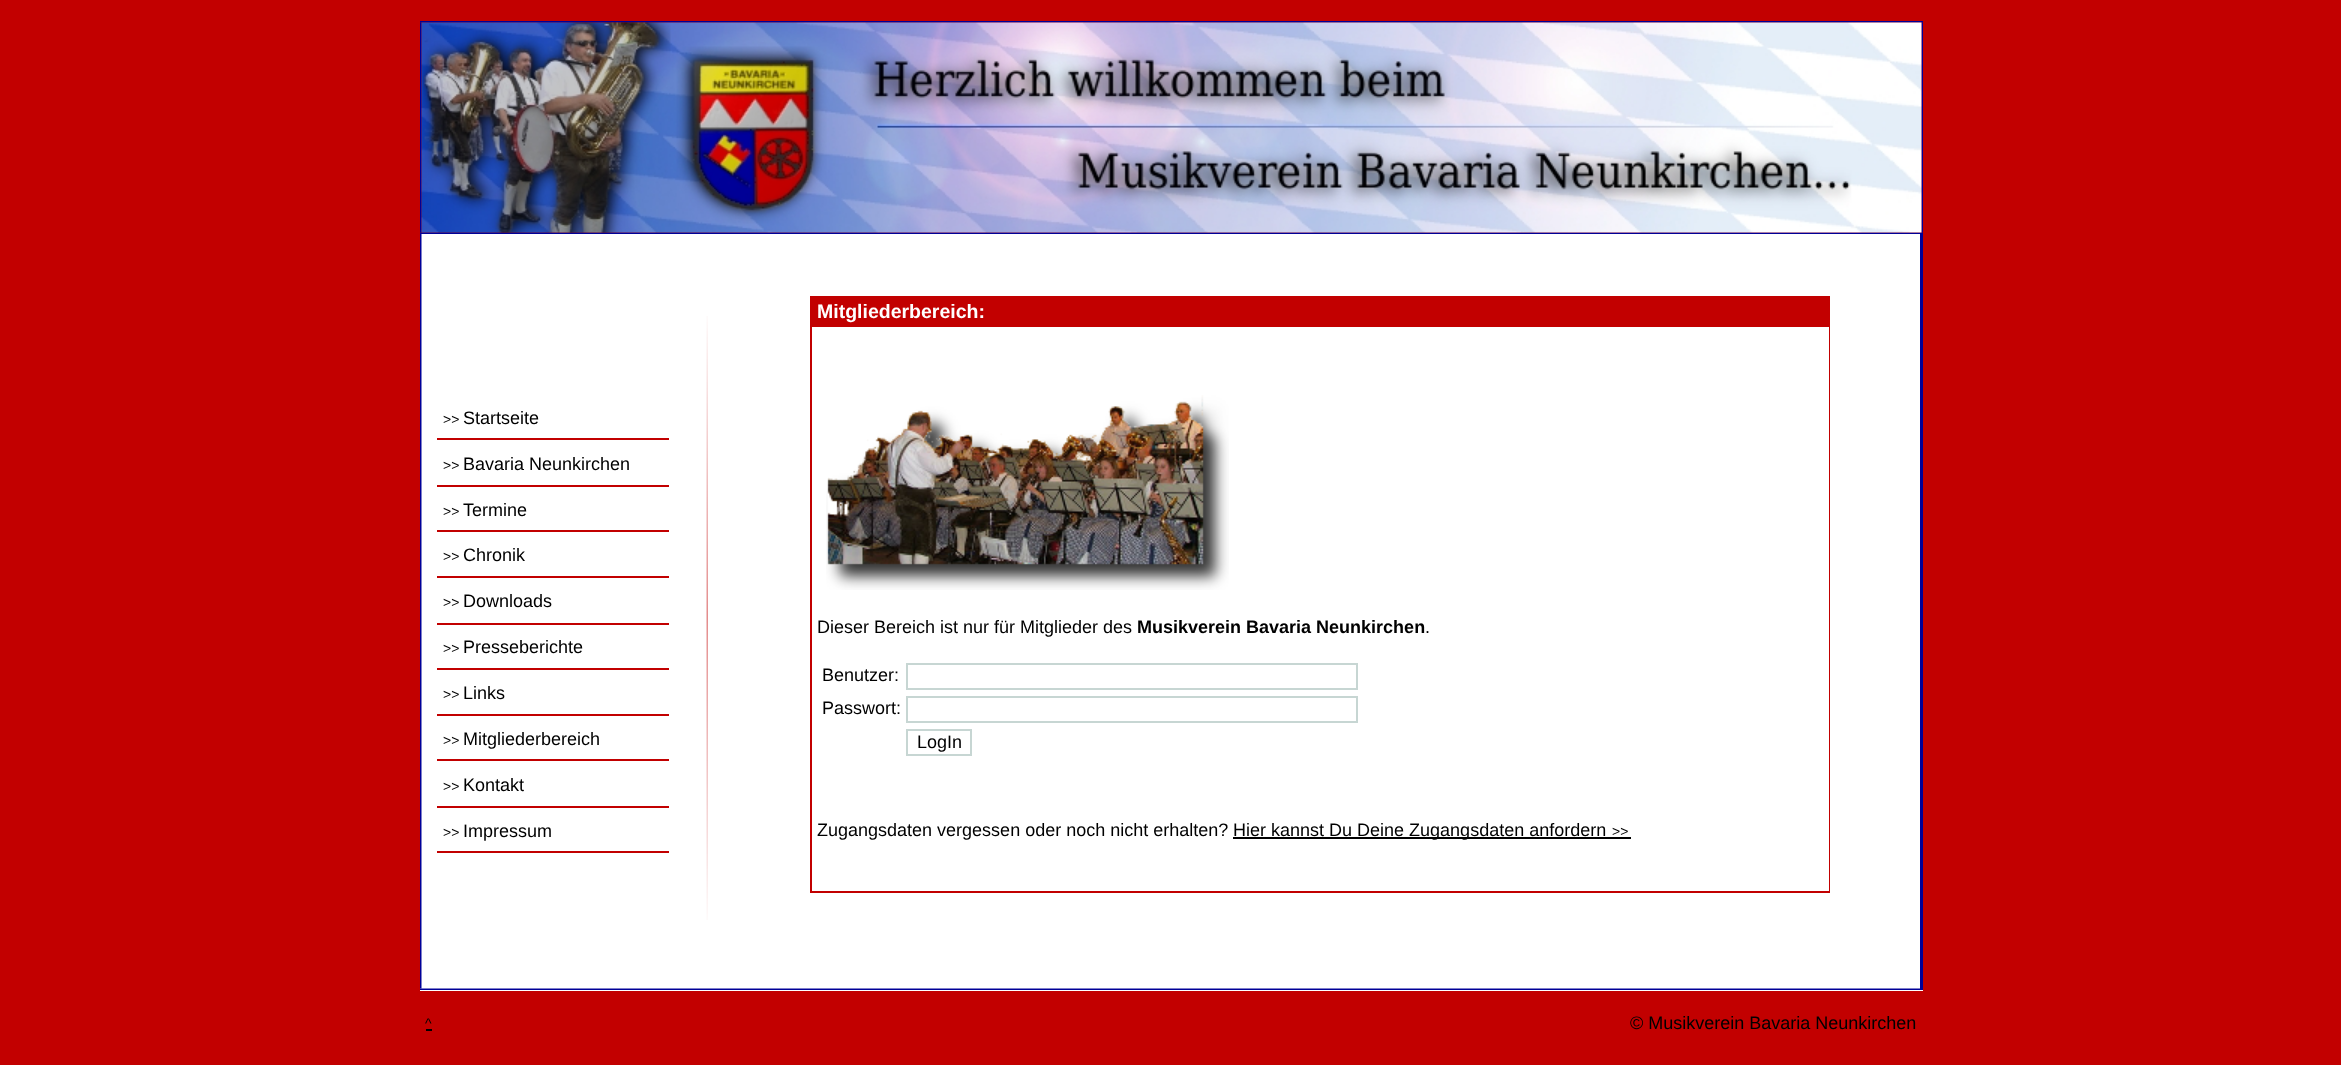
<svg xmlns="http://www.w3.org/2000/svg" width="2341" height="1065">
	<rect width="100%" height="100%" fill="#C20000" />
	<image x="420" y="21" width="1503" height="2" href="assets/img1.png" />
	<image x="420" y="22" width="2" height="211" href="assets/img2.png" />
	<image x="1921" y="22" width="2" height="211" href="assets/img4.png" />
	<image x="420" y="232" width="1503" height="2" href="assets/img5.png" />
	<image x="421" y="22" width="1501" height="211" href="assets/img3.png" />
	<rect x="420" y="234" width="1500" height="755" fill="#FFFFFF" />
	<image x="420" y="234" width="2" height="755" href="assets/img6.png" />
	<rect x="437" y="438" width="232" height="2" fill="#C20000" />
	<text x="443" y="424" font-family="Liberation Sans" font-size="14" fill="#000000">&gt;&gt;</text>
	<text x="463" y="424" font-family="Liberation Sans" font-size="18" fill="#000000">Startseite</text>
	<rect x="437" y="485" width="232" height="2" fill="#C20000" />
	<text x="443" y="470" font-family="Liberation Sans" font-size="14" fill="#000000">&gt;&gt;</text>
	<text x="463" y="470" font-family="Liberation Sans" font-size="18" fill="#000000">Bavaria Neunkirchen</text>
	<rect x="437" y="530" width="232" height="2" fill="#C20000" />
	<text x="443" y="516" font-family="Liberation Sans" font-size="14" fill="#000000">&gt;&gt;</text>
	<text x="463" y="516" font-family="Liberation Sans" font-size="18" fill="#000000">Termine</text>
	<rect x="437" y="576" width="232" height="2" fill="#C20000" />
	<text x="443" y="561" font-family="Liberation Sans" font-size="14" fill="#000000">&gt;&gt;</text>
	<text x="463" y="561" font-family="Liberation Sans" font-size="18" fill="#000000">Chronik</text>
	<rect x="437" y="623" width="232" height="2" fill="#C20000" />
	<text x="443" y="607" font-family="Liberation Sans" font-size="14" fill="#000000">&gt;&gt;</text>
	<text x="463" y="607" font-family="Liberation Sans" font-size="18" fill="#000000">Downloads</text>
	<rect x="437" y="668" width="232" height="2" fill="#C20000" />
	<text x="443" y="653" font-family="Liberation Sans" font-size="14" fill="#000000">&gt;&gt;</text>
	<text x="463" y="653" font-family="Liberation Sans" font-size="18" fill="#000000">Presseberichte</text>
	<rect x="437" y="714" width="232" height="2" fill="#C20000" />
	<text x="443" y="699" font-family="Liberation Sans" font-size="14" fill="#000000">&gt;&gt;</text>
	<text x="463" y="699" font-family="Liberation Sans" font-size="18" fill="#000000">Links</text>
	<rect x="437" y="759" width="232" height="2" fill="#C20000" />
	<text x="443" y="745" font-family="Liberation Sans" font-size="14" fill="#000000">&gt;&gt;</text>
	<text x="463" y="745" font-family="Liberation Sans" font-size="18" fill="#000000">Mitgliederbereich</text>
	<rect x="437" y="806" width="232" height="2" fill="#C20000" />
	<text x="443" y="791" font-family="Liberation Sans" font-size="14" fill="#000000">&gt;&gt;</text>
	<text x="463" y="791" font-family="Liberation Sans" font-size="18" fill="#000000">Kontakt</text>
	<rect x="437" y="851" width="232" height="2" fill="#C20000" />
	<text x="443" y="837" font-family="Liberation Sans" font-size="14" fill="#000000">&gt;&gt;</text>
	<text x="463" y="837" font-family="Liberation Sans" font-size="18" fill="#000000">Impressum</text>
	<image x="706" y="316" width="2" height="604" href="assets/img7.png" />
	<rect x="810" y="296" width="1020" height="597" fill="#C20000" />
	<text x="817" y="318" font-family="Liberation Sans" font-size="19.5" font-weight="700" fill="#FFFFFF">Mitgliederbereich:</text>
	<rect x="812" y="327" width="1017" height="564" fill="#FFFFFF" />
	<image x="826" y="395" width="403" height="195" href="assets/img8.png" />
	<text x="817" y="633" font-family="Liberation Sans" font-size="18" fill="#000000">Dieser Bereich ist nur für Mitglieder des</text>
	<text x="1137" y="633" font-family="Liberation Sans" font-size="18" font-weight="700" fill="#000000">Musikverein Bavaria Neunkirchen</text>
	<g font-family="Liberation Sans" font-size="18" fill="#000000">
		<text x="1425" y="633">.</text>
		<text x="822" y="681">Benutzer:</text>
	</g>
	<rect x="907" y="664" width="450" height="25" fill="none" stroke="#C7D6D3" stroke-width="2" />
	<text x="822" y="714" font-family="Liberation Sans" font-size="18" fill="#000000">Passwort:</text>
	<rect x="907" y="697" width="450" height="25" fill="none" stroke="#C7D6D3" stroke-width="2" />
	<rect x="907" y="730" width="64" height="25" fill="none" stroke="#C7D6D3" stroke-width="2" />
	<g font-family="Liberation Sans" font-size="18" fill="#000000">
		<text x="917" y="748">LogIn</text>
		<text x="817" y="836">Zugangsdaten vergessen oder noch nicht erhalten?</text>
	</g>
	<rect x="1233" y="837" width="398" height="2" fill="#000000" />
	<text x="1233" y="836" font-family="Liberation Sans" font-size="18" fill="#000000">Hier kannst Du Deine Zugangsdaten anfordern</text>
	<text x="1612" y="836" font-family="Liberation Sans" font-size="14" fill="#000000">&gt;&gt;</text>
	<rect x="1920" y="234" width="3" height="755" fill="#000098" />
	<rect x="420" y="990" width="1503" height="1" fill="#FFFFFF" />
	<image x="420" y="988" width="1503" height="2" href="assets/img9.png" />
	<text x="425" y="1028" font-family="Liberation Sans" font-size="14" fill="#000000">^</text>
	<rect x="426" y="1029" width="6" height="2" fill="#000000" />
	<text x="1630" y="1029" font-family="Liberation Sans" font-size="18" fill="#000000">© Musikverein Bavaria Neunkirchen</text>
</svg>
